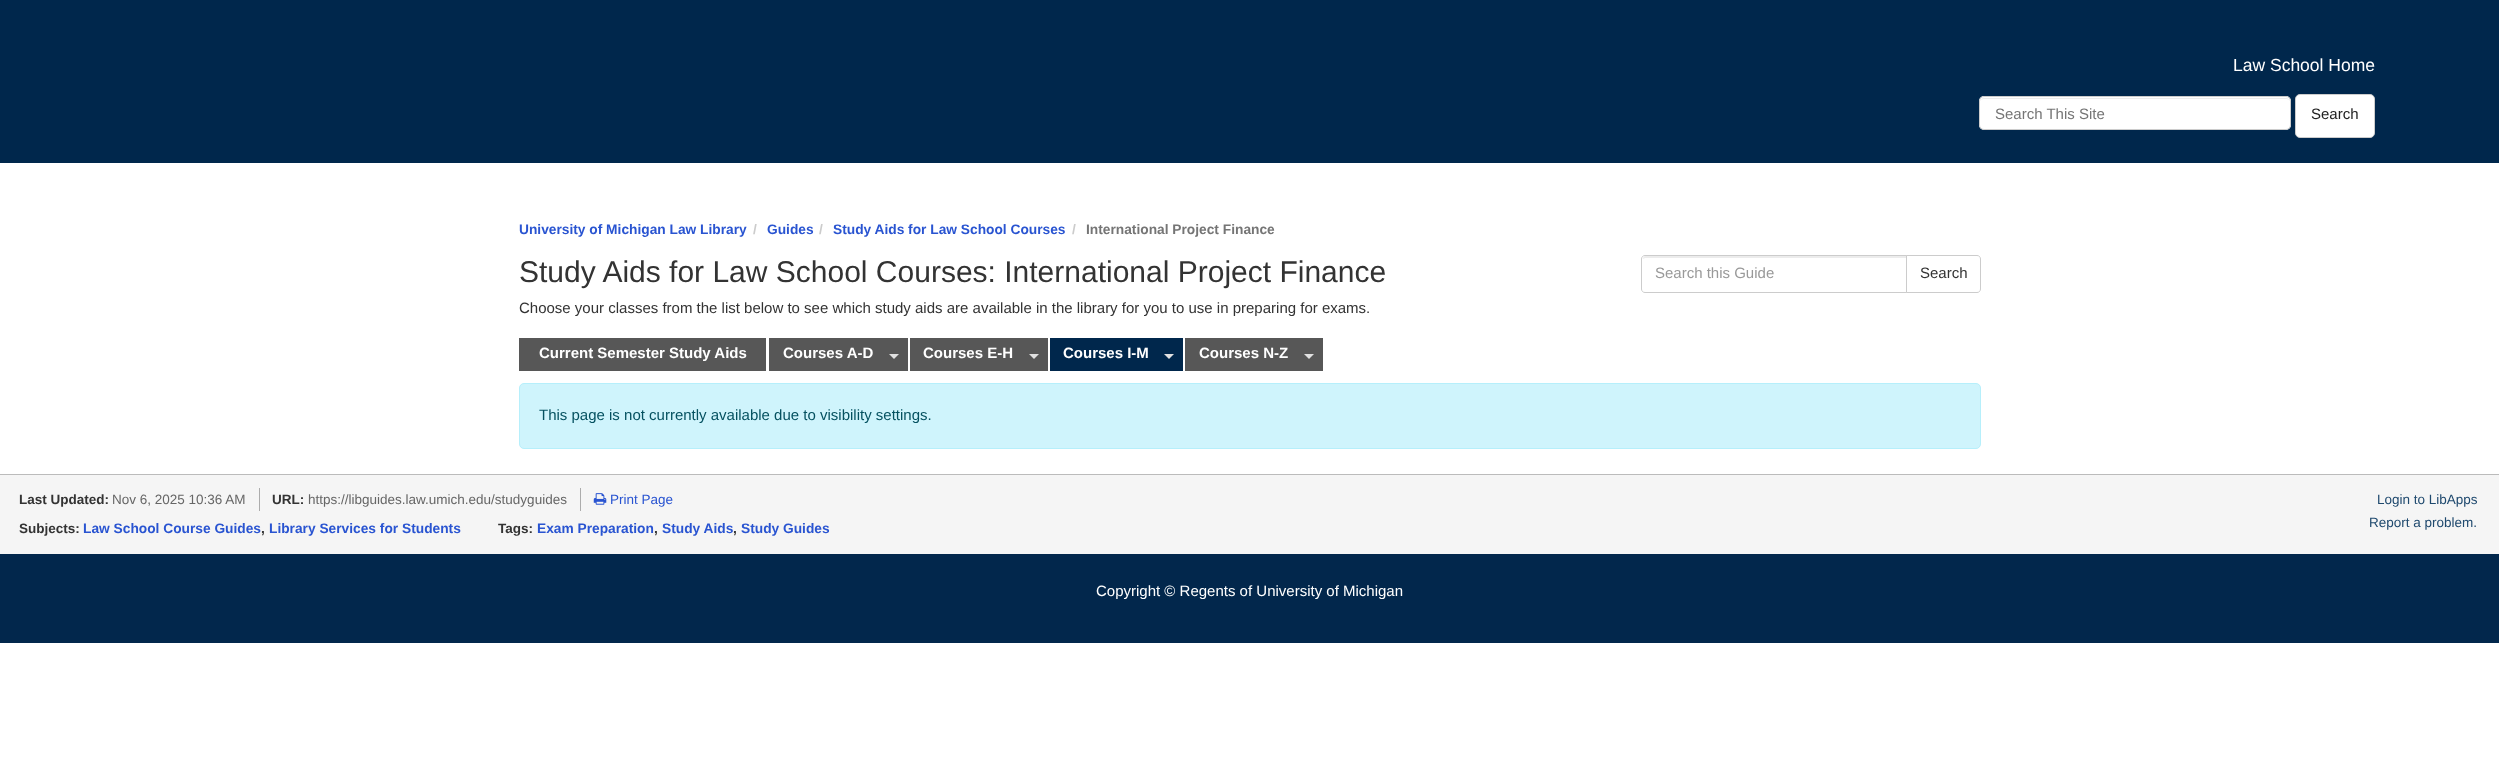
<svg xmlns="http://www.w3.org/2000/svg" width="2499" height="762">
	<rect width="100%" height="100%" fill="#FFFFFF" />
	<rect x="0" y="0" width="2499" height="163" fill="#00274C" />
	<text x="2233" y="71" font-family="Liberation Sans" font-size="17.5" fill="#FFFFFF">Law School Home</text>
	<rect x="1979" y="96" width="312" height="34" rx="5" fill="#FFFFFF" />
	<path d="M1984 99H2286C2288 99 2290 100 2290 102C2290 100 2288 98 2286 98H1984C1982 98 1980 100 1980 102C1980 100 1982 99 1984 99Z" fill="#ECECEC" />
	<rect x="1979.5" y="96.5" width="311" height="33" rx="4.5" fill="none" stroke="#CCCCCC" />
	<text x="1995" y="119" font-family="Liberation Sans" font-size="15" fill="#757575">Search This Site</text>
	<rect x="2295.5" y="94.5" width="79" height="43" rx="4.5" fill="#FFFFFF" stroke="#CCCCCC" />
	<text x="2311" y="119" font-family="Liberation Sans" font-size="15" fill="#222222">Search</text>
	<text x="519" y="234" font-family="Liberation Sans" font-size="13.75" font-weight="700" fill="#2954D1">University of Michigan Law Library</text>
	<text x="753" y="234" font-family="Liberation Sans" font-size="13.75" font-weight="700" fill="#CCCCCC">/</text>
	<text x="767" y="234" font-family="Liberation Sans" font-size="13.75" font-weight="700" fill="#2954D1">Guides</text>
	<text x="819" y="234" font-family="Liberation Sans" font-size="13.75" font-weight="700" fill="#CCCCCC">/</text>
	<text x="833" y="234" font-family="Liberation Sans" font-size="13.75" font-weight="700" fill="#2954D1">Study Aids for Law School Courses</text>
	<text x="1072" y="234" font-family="Liberation Sans" font-size="13.75" font-weight="700" fill="#CCCCCC">/</text>
	<text x="1086" y="234" font-family="Liberation Sans" font-size="13.75" font-weight="700" fill="#757575">International Project Finance</text>
	<text x="519" y="282" font-family="Liberation Sans" font-size="30" fill="#333333">Study Aids for Law School Courses: International Project Finance</text>
	<text x="519" y="313" font-family="Liberation Sans" font-size="15" fill="#333333">Choose your classes from the list below to see which study aids are available in the library for you to use in preparing for exams.</text>
	<path d="M1645 258H1906V256H1646C1644 256 1643 257 1643 259Z" fill="#ECECEC" />
	<path d="M1645 255.5H1907.5V292.5H1645C1643 292.5 1641.5 291 1641.5 289V259C1641.5 257 1643 255.5 1645 255.5Z" fill="none" stroke="#CCCCCC" />
	<text x="1655" y="278" font-family="Liberation Sans" font-size="15" fill="#999999">Search this Guide</text>
	<path d="M1906.5 255.5H1977C1979 255.5 1980.5 257 1980.5 259V289C1980.5 291 1979 292.5 1977 292.5H1906.5Z" fill="#FFFFFF" stroke="#CCCCCC" />
	<text x="1920" y="278" font-family="Liberation Sans" font-size="15" fill="#333333">Search</text>
	<rect x="519" y="338" width="247" height="33" fill="#575757" />
	<text x="539" y="358" font-family="Liberation Sans" font-size="15" font-weight="700" fill="#FFFFFF">Current Semester Study Aids</text>
	<rect x="769" y="338" width="139" height="33" fill="#575757" />
	<text x="783" y="358" font-family="Liberation Sans" font-size="15" font-weight="700" fill="#FFFFFF">Courses A-D</text>
	<path d="M889 354H899L894 359Z" fill="#E1E1E1" />
	<rect x="910" y="338" width="138" height="33" fill="#575757" />
	<text x="923" y="358" font-family="Liberation Sans" font-size="15" font-weight="700" fill="#FFFFFF">Courses E-H</text>
	<path d="M1029 354H1039L1034 359Z" fill="#E1E1E1" />
	<rect x="1050" y="338" width="133" height="33" fill="#00274C" />
	<text x="1063" y="358" font-family="Liberation Sans" font-size="15" font-weight="700" fill="#FFFFFF">Courses I-M</text>
	<path d="M1164 354H1174L1169 359Z" fill="#E1E1E1" />
	<rect x="1185" y="338" width="138" height="33" fill="#575757" />
	<text x="1199" y="358" font-family="Liberation Sans" font-size="15" font-weight="700" fill="#FFFFFF">Courses N-Z</text>
	<path d="M1304 354H1314L1309 359Z" fill="#E1E1E1" />
	<rect x="519.5" y="383.5" width="1461" height="65" rx="4.5" fill="#CFF4FC" stroke="#B6EFFB" />
	<text x="539" y="420" font-family="Liberation Sans" font-size="15" fill="#055160">This page is not currently available due to visibility settings.</text>
	<rect x="0" y="475" width="2499" height="79" fill="#F5F5F5" />
	<rect x="0" y="474" width="2499" height="1" fill="#BBBBBB" />
	<rect x="259" y="488" width="1" height="23" fill="#ACACAC" />
	<text x="19" y="504" font-family="Liberation Sans" font-size="13.5" font-weight="700" fill="#333333">Last Updated:</text>
	<text x="112" y="504" font-family="Liberation Sans" font-size="13.5" fill="#666666">Nov 6, 2025 10:36 AM</text>
	<rect x="580" y="488" width="1" height="23" fill="#ACACAC" />
	<text x="272" y="504" font-family="Liberation Sans" font-size="13.5" font-weight="700" fill="#333333">URL:</text>
	<text x="308" y="504" font-family="Liberation Sans" font-size="13.5" fill="#666666">https://libguides.law.umich.edu/studyguides</text>
	<image x="593" y="493" width="14" height="12" href="assets/img1.png" />
	<text x="610" y="504" font-family="Liberation Sans" font-size="13.5" fill="#2954D1">Print Page</text>
	<text x="2377" y="504" font-family="Liberation Sans" font-size="13.5" fill="#1F496E">Login to LibApps</text>
	<text x="19" y="533" font-family="Liberation Sans" font-size="13.5" font-weight="700" fill="#333333">Subjects:</text>
	<text x="83" y="533" font-family="Liberation Sans" font-size="13.75" font-weight="700" fill="#2954D1">Law School Course Guides</text>
	<text x="261" y="533" font-family="Liberation Sans" font-size="13.75" font-weight="700" fill="#333333">,</text>
	<text x="269" y="533" font-family="Liberation Sans" font-size="13.75" font-weight="700" fill="#2954D1">Library Services for Students</text>
	<text x="498" y="533" font-family="Liberation Sans" font-size="13.5" font-weight="700" fill="#333333">Tags:</text>
	<text x="537" y="533" font-family="Liberation Sans" font-size="13.75" font-weight="700" fill="#2954D1">Exam Preparation</text>
	<text x="654" y="533" font-family="Liberation Sans" font-size="13.75" font-weight="700" fill="#333333">,</text>
	<text x="662" y="533" font-family="Liberation Sans" font-size="13.75" font-weight="700" fill="#2954D1">Study Aids</text>
	<text x="733" y="533" font-family="Liberation Sans" font-size="13.75" font-weight="700" fill="#333333">,</text>
	<text x="741" y="533" font-family="Liberation Sans" font-size="13.75" font-weight="700" fill="#2954D1">Study Guides</text>
	<text x="2369" y="527" font-family="Liberation Sans" font-size="13.5" fill="#1F496E">Report a problem.</text>
	<rect x="0" y="554" width="2499" height="89" fill="#02274C" />
	<text x="1096" y="596" font-family="Liberation Sans" font-size="15" fill="#FFFFFF">Copyright © Regents of University of Michigan</text>
</svg>
